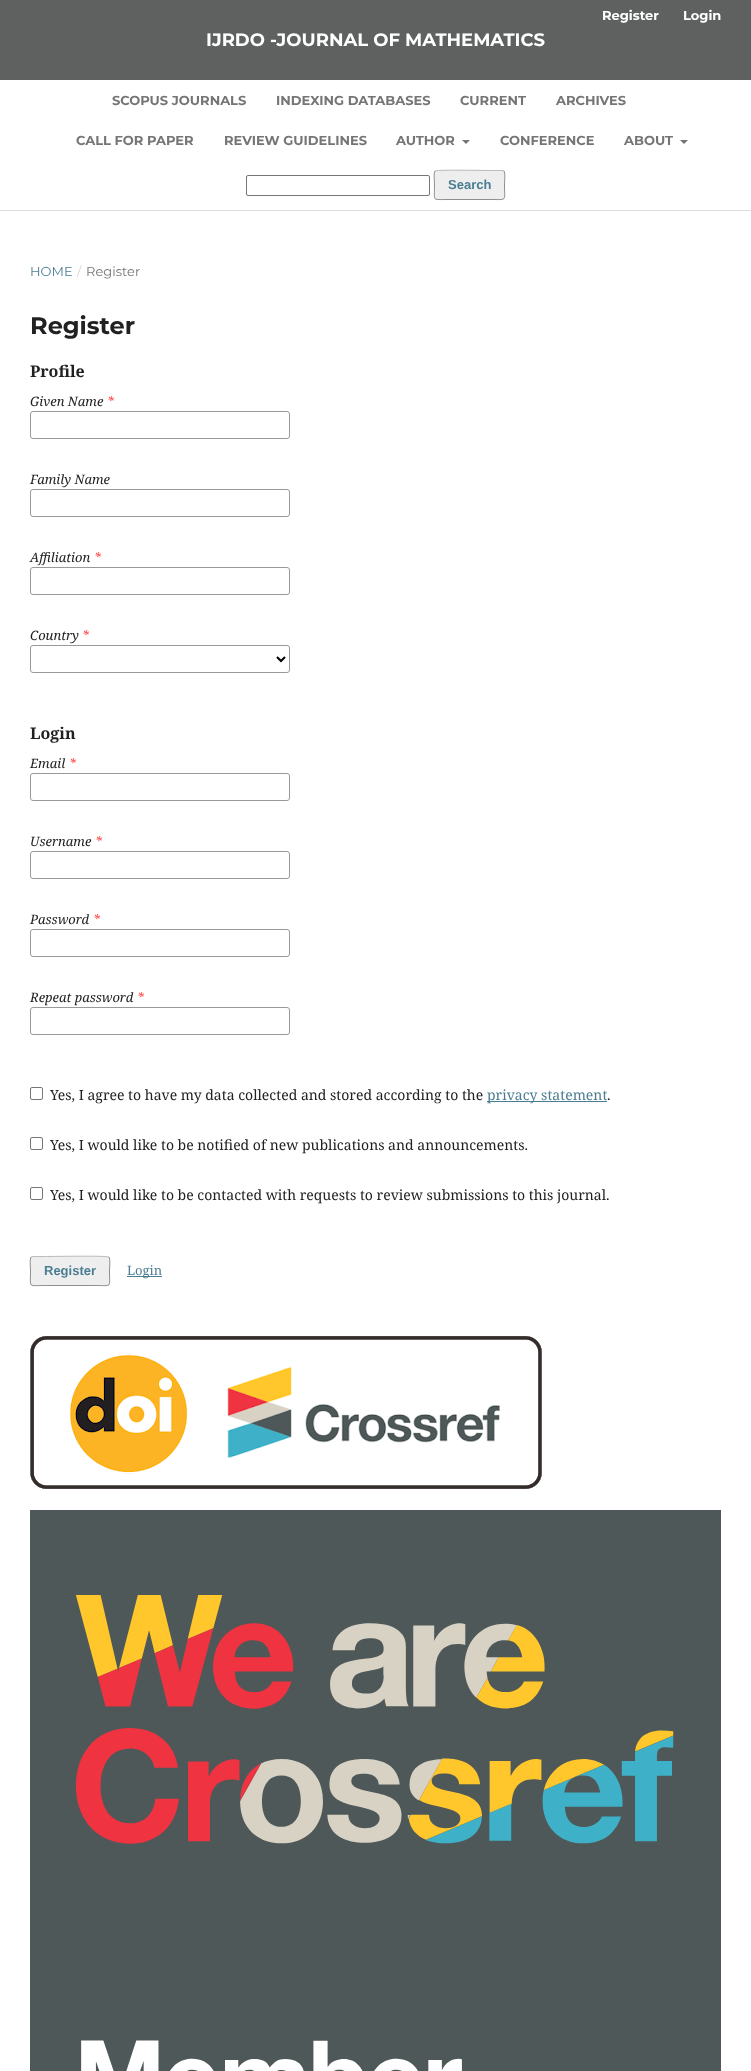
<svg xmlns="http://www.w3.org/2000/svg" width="751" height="2071">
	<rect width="100%" height="100%" fill="#FFFFFF" />
	<rect x="0" y="0" width="751" height="80" fill="#5F6060" />
	<rect x="0" y="210" width="751" height="1" fill="#DDDDDD" />
	<g font-family="Montserrat" font-size="13" font-weight="700" fill="#FFFFFF">
		<text x="602" y="20">Register</text>
		<text x="683" y="20">Login</text>
	</g>
	<text x="206" y="46" font-family="Montserrat" font-size="18" font-weight="700" fill="#FFFFFF">IJRDO -JOURNAL OF MATHEMATICS</text>
	<g font-family="Montserrat" font-size="13" font-weight="700" fill="#757575">
		<text x="112" y="105">SCOPUS JOURNALS</text>
		<text x="276" y="105">INDEXING DATABASES</text>
		<text x="460" y="105">CURRENT</text>
		<text x="556" y="105">ARCHIVES</text>
		<text x="76" y="145">CALL FOR PAPER</text>
		<text x="224" y="145">REVIEW GUIDELINES</text>
		<text x="396" y="145">AUTHOR</text>
	</g>
	<path d="M462 140H470L466 144Z" fill="#757575" />
	<g font-family="Montserrat" font-size="13" font-weight="700" fill="#757575">
		<text x="500" y="145">CONFERENCE</text>
		<text x="624" y="145">ABOUT</text>
	</g>
	<path d="M680 140H688L684 144Z" fill="#757575" />
	<rect x="246.5" y="175.5" width="183" height="20" rx="1.5" fill="none" stroke="#767676" />
	<rect x="434" y="170" width="71" height="30" rx="3" fill="#EEEEEE" />
	<path d="M435 171H435.5C437.5 169.5 485 170.5 491 170.5H502L504 171" fill="none" stroke="#BBBBBB" />
	<path d="M504 171C505.5 173 504.5 182.5 504.5 185C504.5 201.5 507.5 199.5 491 199.5H448C431.5 199.5 434.5 201.5 434.5 185C434.5 182.5 433.5 173 435 171" fill="none" stroke="#000000" stroke-opacity="0.4" />
	<text x="448" y="189" font-family="Liberation Sans" font-size="13" font-weight="700" fill="#4B7D92">Search</text>
	<text x="30" y="276" font-family="Montserrat" font-size="13" fill="#4B7D92">HOME</text>
	<text x="77" y="276" font-family="Montserrat" font-size="13" fill="#D6D6D6">/</text>
	<text x="86" y="276" font-family="Montserrat" font-size="13" fill="#757575">Register</text>
	<text x="30" y="334" font-family="Montserrat" font-size="24" font-weight="700" fill="#212121">Register</text>
	<text x="30" y="377" font-family="Noto Serif" font-size="16" font-weight="700" fill="#212121">Profile</text>
	<text x="30" y="406" font-family="Noto Serif" font-size="13" font-style="italic" fill="#212121">Given Name</text>
	<text x="107" y="406" font-family="Noto Serif" font-size="13" font-style="italic" fill="#FF4040">*</text>
	<rect x="30.5" y="411.5" width="259" height="27" rx="2.5" fill="none" stroke="#999999" />
	<text x="30" y="484" font-family="Noto Serif" font-size="13" font-style="italic" fill="#212121">Family Name</text>
	<rect x="30.5" y="489.5" width="259" height="27" rx="2.5" fill="none" stroke="#999999" />
	<text x="30" y="562" font-family="Noto Serif" font-size="13" font-style="italic" fill="#212121">Affiliation</text>
	<text x="94" y="562" font-family="Noto Serif" font-size="13" font-style="italic" fill="#FF4040">*</text>
	<rect x="30.5" y="567.5" width="259" height="27" rx="2.5" fill="none" stroke="#999999" />
	<text x="30" y="640" font-family="Noto Serif" font-size="13" font-style="italic" fill="#212121">Country</text>
	<text x="82" y="640" font-family="Noto Serif" font-size="13" font-style="italic" fill="#FF4040">*</text>
	<rect x="30.5" y="645.5" width="259" height="27" rx="2.5" fill="none" stroke="#999999" />
	<path d="M277 657L281 661L285 657" fill="none" stroke="#000000" stroke-width="2" />
	<text x="30" y="739" font-family="Noto Serif" font-size="16" font-weight="700" fill="#212121">Login</text>
	<text x="30" y="768" font-family="Noto Serif" font-size="13" font-style="italic" fill="#212121">Email</text>
	<text x="69" y="768" font-family="Noto Serif" font-size="13" font-style="italic" fill="#FF4040">*</text>
	<rect x="30.5" y="773.5" width="259" height="27" rx="2.5" fill="none" stroke="#999999" />
	<text x="30" y="846" font-family="Noto Serif" font-size="13" font-style="italic" fill="#212121">Username</text>
	<text x="95" y="846" font-family="Noto Serif" font-size="13" font-style="italic" fill="#FF4040">*</text>
	<rect x="30.5" y="851.5" width="259" height="27" rx="2.5" fill="none" stroke="#999999" />
	<text x="30" y="924" font-family="Noto Serif" font-size="13" font-style="italic" fill="#212121">Password</text>
	<text x="93" y="924" font-family="Noto Serif" font-size="13" font-style="italic" fill="#FF4040">*</text>
	<rect x="30.5" y="929.5" width="259" height="27" rx="2.5" fill="none" stroke="#999999" />
	<text x="30" y="1002" font-family="Noto Serif" font-size="13" font-style="italic" fill="#212121">Repeat password</text>
	<text x="137" y="1002" font-family="Noto Serif" font-size="13" font-style="italic" fill="#FF4040">*</text>
	<rect x="30.5" y="1007.5" width="259" height="27" rx="2.5" fill="none" stroke="#999999" />
	<rect x="30.5" y="1087.5" width="12" height="12" rx="1.5" fill="none" stroke="#767676" />
	<text x="50" y="1100" font-family="Noto Serif" font-size="14" fill="#212121">Yes, I agree to have my data collected and stored according to the</text>
	<rect x="487" y="1101" width="120" height="1" fill="#4B7D92" />
	<text x="487" y="1100" font-family="Noto Serif" font-size="14" fill="#4B7D92">privacy statement</text>
	<text x="607" y="1100" font-family="Noto Serif" font-size="14" fill="#212121">.</text>
	<rect x="30.5" y="1137.5" width="12" height="12" rx="1.5" fill="none" stroke="#767676" />
	<text x="50" y="1150" font-family="Noto Serif" font-size="14" fill="#212121">Yes, I would like to be notified of new publications and announcements.</text>
	<rect x="30.5" y="1187.5" width="12" height="12" rx="1.5" fill="none" stroke="#767676" />
	<text x="50" y="1200" font-family="Noto Serif" font-size="14" fill="#212121">Yes, I would like to be contacted with requests to review submissions to this journal.</text>
	<rect x="30" y="1256" width="80" height="30" rx="3" fill="#EEEEEE" />
	<path d="M31 1257L33 1256.5H45.5C52 1256.5 106.5 1255.5 108.5 1257H109" fill="none" stroke="#BBBBBB" />
	<path d="M109 1257C110.5 1259 109.5 1268.5 109.5 1271C109.5 1288.5 112.5 1285.5 94.5 1285.5H45.5C27.5 1285.5 30.5 1288.5 30.5 1271C30.5 1268.5 29.5 1259 31 1257" fill="none" stroke="#000000" stroke-opacity="0.4" />
	<text x="44" y="1275" font-family="Liberation Sans" font-size="13" font-weight="700" fill="#4B7D92">Register</text>
	<rect x="127" y="1276" width="35" height="1" fill="#4B7D92" />
	<text x="127" y="1275" font-family="Noto Serif" font-size="13" fill="#4B7D92">Login</text>
	<image x="30" y="1336" width="512" height="153" href="assets/img1.png" />
	<image x="30" y="1510" width="691" height="561" href="assets/img2.png" />
</svg>
